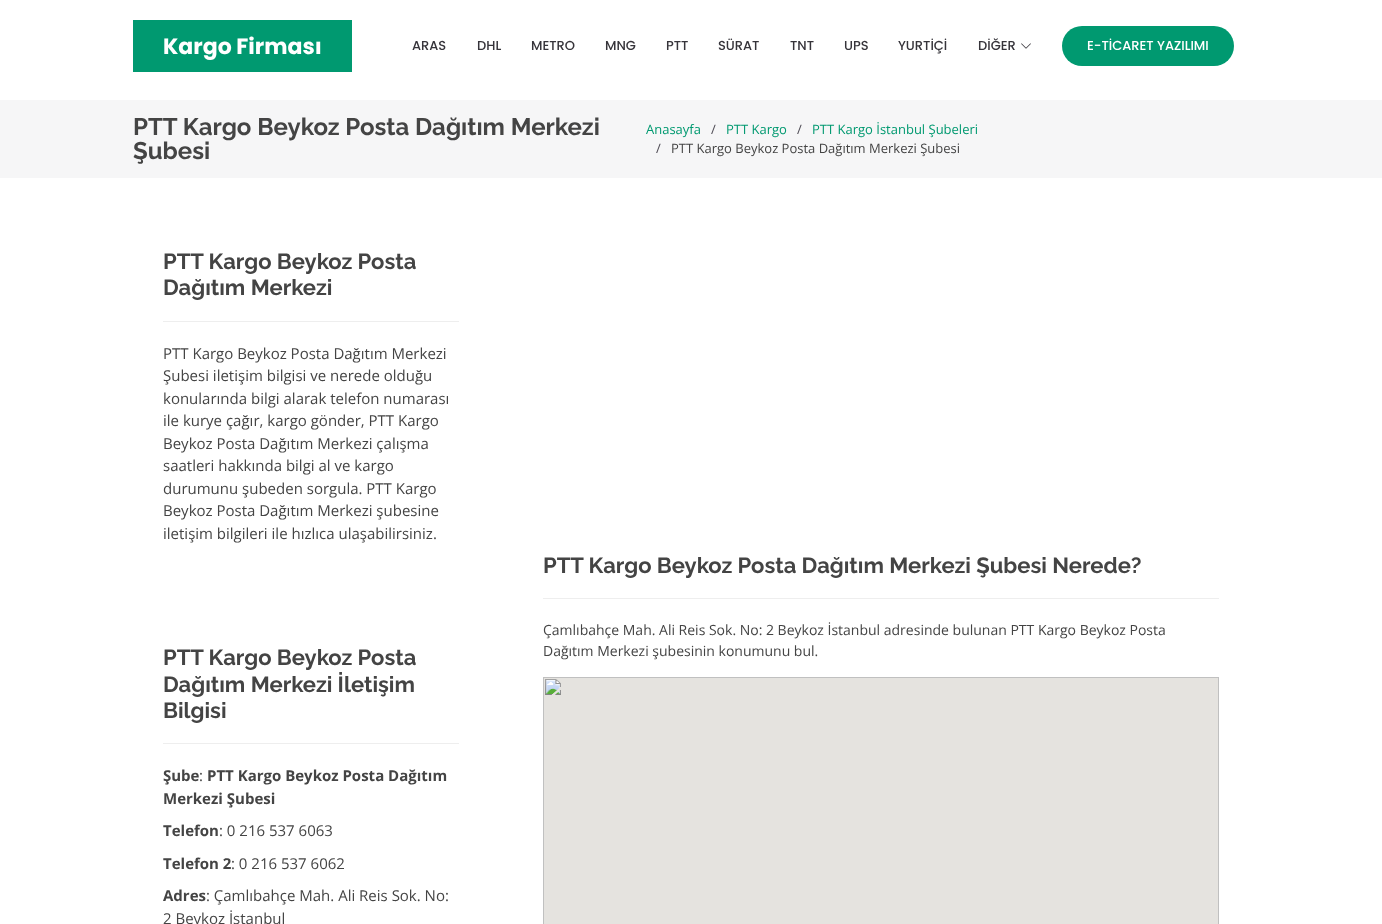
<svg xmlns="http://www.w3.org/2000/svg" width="1382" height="924">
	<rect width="100%" height="100%" fill="#FFFFFF" />
	<rect x="133" y="20" width="219" height="52" fill="#009970" />
	<text x="163" y="54" font-family="Poppins" font-size="22" font-weight="700" fill="#FFFFFF">Kargo Firması</text>
	<g font-family="Poppins" font-size="13" font-weight="500" fill="#36343A">
		<text x="412" y="50">ARAS</text>
		<text x="477" y="50">DHL</text>
		<text x="531" y="50">METRO</text>
		<text x="605" y="50">MNG</text>
		<text x="666" y="50">PTT</text>
		<text x="718" y="50">SÜRAT</text>
		<text x="790" y="50">TNT</text>
		<text x="844" y="50">UPS</text>
		<text x="898" y="50">YURTİÇİ</text>
		<text x="978" y="50">DİĞER</text>
	</g>
	<image x="1021" y="43" width="10" height="6" href="assets/img1.png" />
	<rect x="1062" y="26" width="172" height="40" rx="20" fill="#009970" />
	<text x="1087" y="50" font-family="Poppins" font-size="13" font-weight="500" fill="#FFFFFF">E-TİCARET YAZILIMI</text>
	<rect x="0" y="100" width="1382" height="78" fill="#F6F6F7" />
	<g font-family="Raleway" font-size="24" font-weight="700" fill="#444444">
		<text x="133" y="135">PTT Kargo Beykoz Posta Dağıtım Merkezi</text>
		<text x="133" y="159">Şubesi</text>
	</g>
	<text x="646" y="134" font-family="Open Sans" font-size="13" fill="#009970">Anasayfa</text>
	<text x="711" y="134" font-family="Open Sans" font-size="13" fill="#4F4C55">/</text>
	<text x="726" y="134" font-family="Open Sans" font-size="13" fill="#009970">PTT Kargo</text>
	<text x="797" y="134" font-family="Open Sans" font-size="13" fill="#4F4C55">/</text>
	<text x="812" y="134" font-family="Open Sans" font-size="13" fill="#009970">PTT Kargo İstanbul Şubeleri</text>
	<text x="656" y="153" font-family="Open Sans" font-size="13" fill="#4F4C55">/</text>
	<text x="671" y="153" font-family="Open Sans" font-size="13" fill="#444444">PTT Kargo Beykoz Posta Dağıtım Merkezi Şubesi</text>
	<rect x="163" y="321" width="296" height="1" fill="#EEEEEE" />
	<g font-family="Raleway" font-size="22" font-weight="700" fill="#444444">
		<text x="163" y="269">PTT Kargo Beykoz Posta</text>
		<text x="163" y="295">Dağıtım Merkezi</text>
	</g>
	<g font-family="Open Sans" font-size="15" fill="#444444">
		<text x="163" y="359">PTT Kargo Beykoz Posta Dağıtım Merkezi</text>
		<text x="163" y="381">Şubesi iletişim bilgisi ve nerede olduğu</text>
		<text x="163" y="404">konularında bilgi alarak telefon numarası</text>
		<text x="163" y="426">ile kurye çağır, kargo gönder, PTT Kargo</text>
		<text x="163" y="449">Beykoz Posta Dağıtım Merkezi çalışma</text>
		<text x="163" y="471">saatleri hakkında bilgi al ve kargo</text>
		<text x="163" y="494">durumunu şubeden sorgula. PTT Kargo</text>
		<text x="163" y="516">Beykoz Posta Dağıtım Merkezi şubesine</text>
		<text x="163" y="539">iletişim bilgileri ile hızlıca ulaşabilirsiniz.</text>
	</g>
	<rect x="163" y="743" width="296" height="1" fill="#EEEEEE" />
	<g font-family="Raleway" font-size="22" font-weight="700" fill="#444444">
		<text x="163" y="665">PTT Kargo Beykoz Posta</text>
		<text x="163" y="692">Dağıtım Merkezi İletişim</text>
		<text x="163" y="718">Bilgisi</text>
	</g>
	<text x="163" y="781" font-family="Open Sans" font-size="15" font-weight="700" fill="#444444">Şube</text>
	<text x="199" y="781" font-family="Open Sans" font-size="15" fill="#444444">:</text>
	<g font-family="Open Sans" font-size="15" font-weight="700" fill="#444444">
		<text x="207" y="781">PTT Kargo Beykoz Posta Dağıtım</text>
		<text x="163" y="804">Merkezi Şubesi</text>
		<text x="163" y="836">Telefon</text>
	</g>
	<text x="219" y="836" font-family="Open Sans" font-size="15" fill="#444444">: 0 216 537 6063</text>
	<text x="163" y="869" font-family="Open Sans" font-size="15" font-weight="700" fill="#444444">Telefon 2</text>
	<text x="231" y="869" font-family="Open Sans" font-size="15" fill="#444444">: 0 216 537 6062</text>
	<text x="163" y="901" font-family="Open Sans" font-size="15" font-weight="700" fill="#444444">Adres</text>
	<g font-family="Open Sans" font-size="15" fill="#444444">
		<text x="206" y="901">: Çamlıbahçe Mah. Ali Reis Sok. No:</text>
		<text x="163" y="924">2 Beykoz İstanbul</text>
	</g>
	<rect x="543" y="598" width="676" height="1" fill="#EEEEEE" />
	<text x="543" y="573" font-family="Raleway" font-size="22" font-weight="700" fill="#444444">PTT Kargo Beykoz Posta Dağıtım Merkezi Şubesi Nerede?</text>
	<g font-family="Open Sans" font-size="14" fill="#444444">
		<text x="543" y="635">Çamlıbahçe Mah. Ali Reis Sok. No: 2 Beykoz İstanbul adresinde bulunan PTT Kargo Beykoz Posta</text>
		<text x="543" y="656">Dağıtım Merkezi şubesinin konumunu bul.</text>
	</g>
	<image x="543" y="677" width="676" height="247" href="assets/img2.png" />
</svg>
